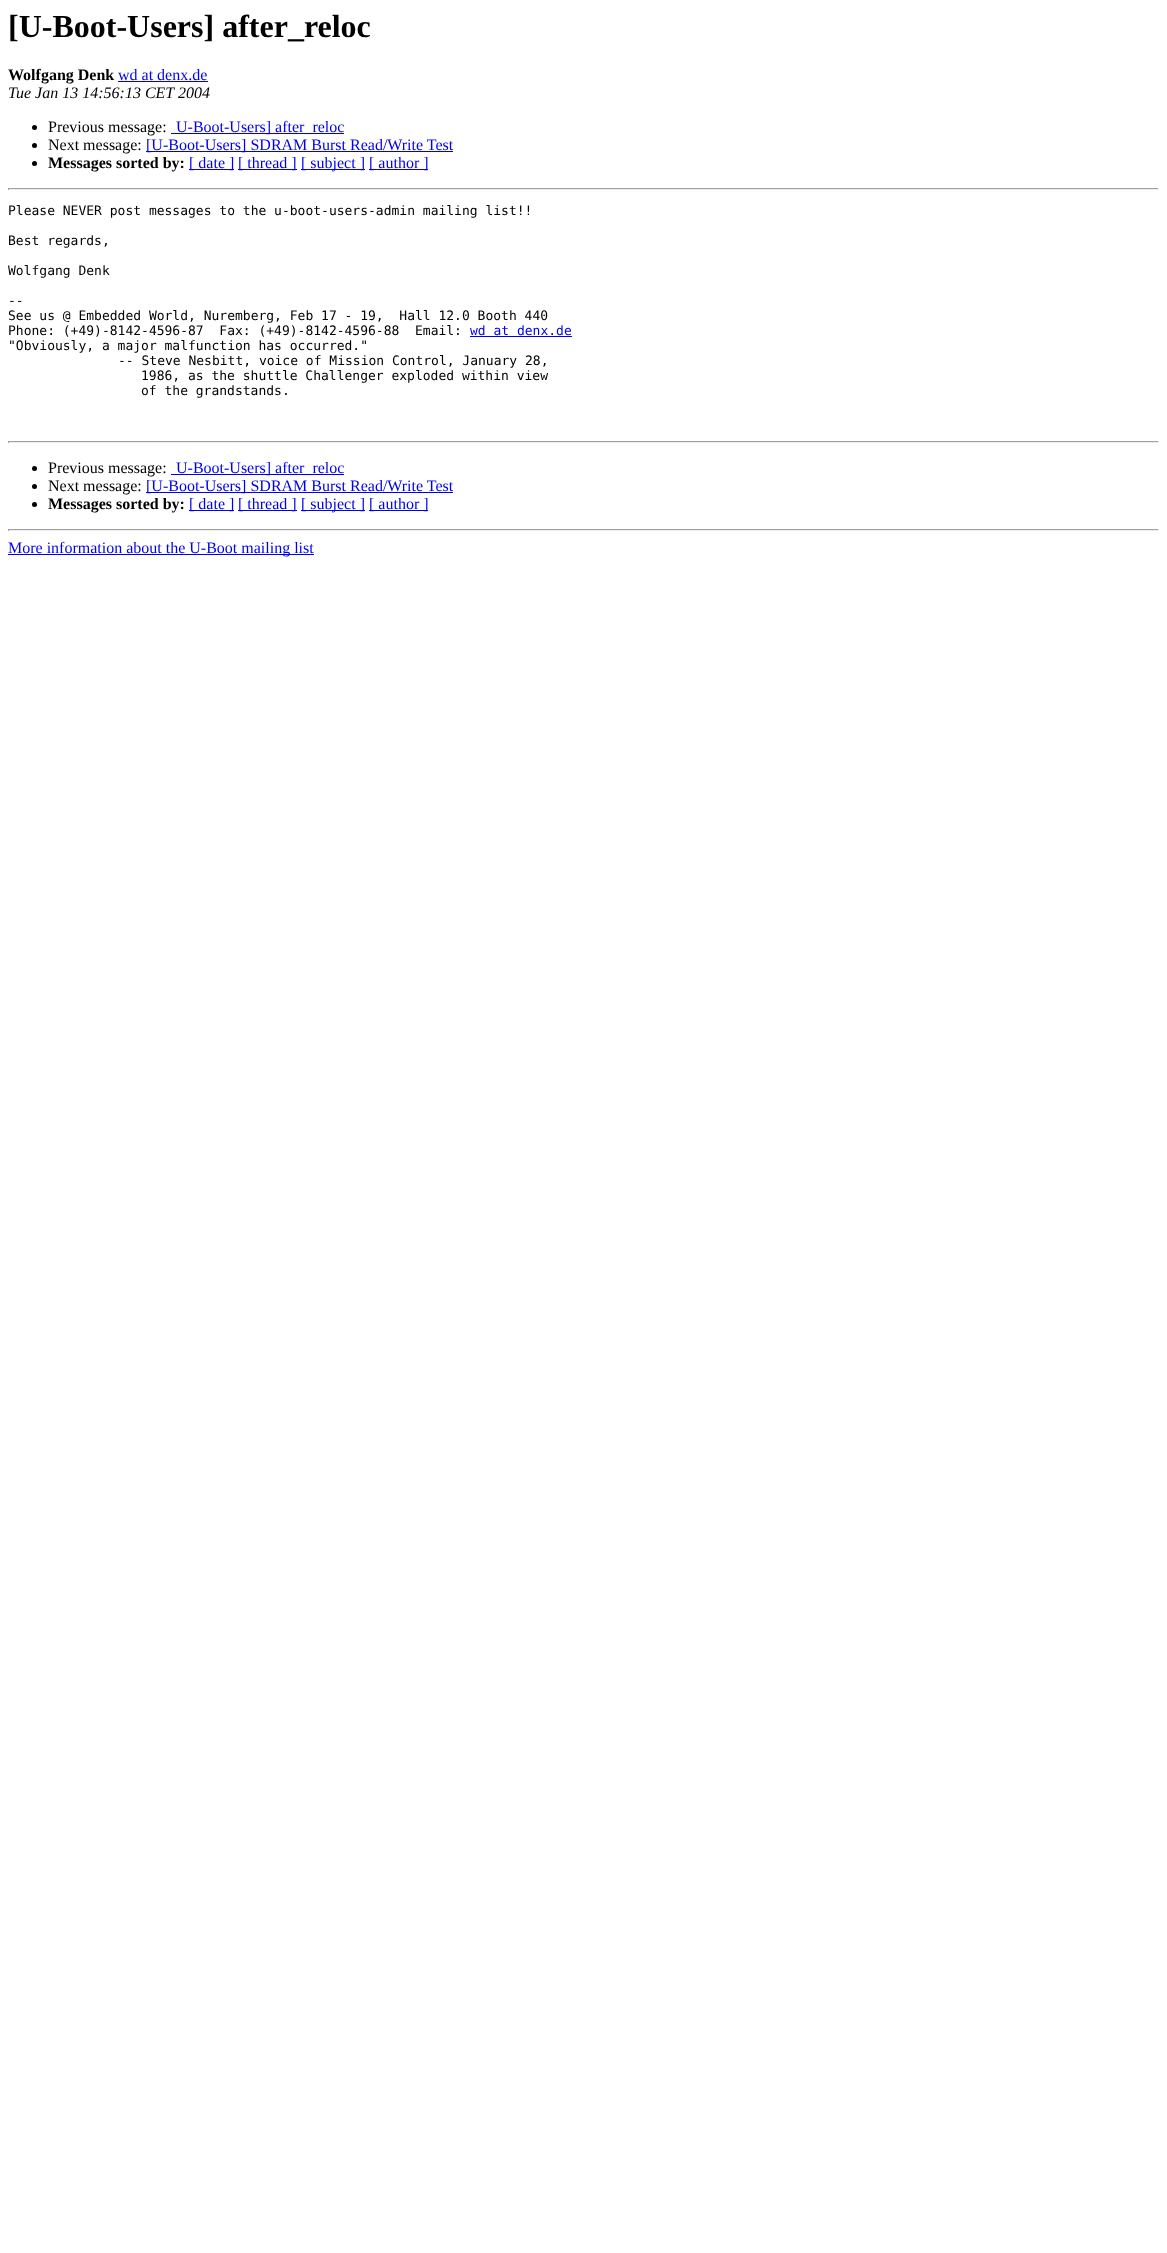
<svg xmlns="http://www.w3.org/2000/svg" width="1167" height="2253">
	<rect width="100%" height="100%" fill="#FFFFFF" />
	<text x="8" y="37" font-family="Liberation Serif" font-size="32" font-weight="700" fill="#000000">[U-Boot-Users] after_reloc</text>
	<text x="8" y="80" font-family="Liberation Serif" font-size="16" font-weight="700" fill="#000000">Wolfgang Denk</text>
	<text x="118" y="80" font-family="Liberation Serif" font-size="16" fill="#0000EE">wd at denx.de</text>
	<rect x="118" y="81" width="90" height="1" fill="#0000EE" />
	<text x="8" y="98" font-family="Liberation Serif" font-size="16" font-style="italic" fill="#000000">Tue Jan 13 14:56:13 CET 2004</text>
	<circle cx="34.5" cy="127.5" r="2.5" fill="#000000" />
	<text x="48" y="132" font-family="Liberation Serif" font-size="16" fill="#000000">Previous message:</text>
	<rect x="171" y="133" width="173" height="1" fill="#0000EE" />
	<text x="176" y="132" font-family="Liberation Serif" font-size="16" fill="#0000EE">U-Boot-Users] after_reloc</text>
	<circle cx="34.5" cy="145.5" r="2.5" fill="#000000" />
	<text x="48" y="150" font-family="Liberation Serif" font-size="16" fill="#000000">Next message:</text>
	<rect x="146" y="151" width="307" height="1" fill="#0000EE" />
	<text x="146" y="150" font-family="Liberation Serif" font-size="16" fill="#0000EE">[U-Boot-Users] SDRAM Burst Read/Write Test</text>
	<circle cx="34.5" cy="163.5" r="2.5" fill="#000000" />
	<text x="48" y="168" font-family="Liberation Serif" font-size="16" font-weight="700" fill="#000000">Messages sorted by:</text>
	<rect x="189" y="169" width="45" height="1" fill="#0000EE" />
	<text x="189" y="168" font-family="Liberation Serif" font-size="16" fill="#0000EE">[ date ]</text>
	<rect x="238" y="169" width="59" height="1" fill="#0000EE" />
	<text x="238" y="168" font-family="Liberation Serif" font-size="16" fill="#0000EE">[ thread ]</text>
	<rect x="301" y="169" width="64" height="1" fill="#0000EE" />
	<text x="301" y="168" font-family="Liberation Serif" font-size="16" fill="#0000EE">[ subject ]</text>
	<rect x="369" y="169" width="59" height="1" fill="#0000EE" />
	<text x="369" y="168" font-family="Liberation Serif" font-size="16" fill="#0000EE">[ author ]</text>
	<rect x="8" y="188" width="1151" height="1" fill="#9F9F9F" />
	<rect x="1158" y="188" width="1" height="2" fill="#EEEEEE" />
	<rect x="8" y="189" width="1151" height="1" fill="#EEEEEE" />
	<rect x="8" y="188" width="1" height="2" fill="#9F9F9F" />
	<g font-family="DejaVu Sans Mono" font-size="13" fill="#000000">
		<text x="8" y="215">Please NEVER post messages to the u-boot-users-admin mailing list!!</text>
		<text x="8" y="245">Best regards,</text>
		<text x="8" y="275">Wolfgang Denk</text>
		<text x="8" y="305">--</text>
		<text x="8" y="320" xml:space="preserve">See us @ Embedded World, Nuremberg, Feb 17 - 19,  Hall 12.0 Booth 440</text>
		<text x="8" y="335" xml:space="preserve">Phone: (+49)-8142-4596-87  Fax: (+49)-8142-4596-88  Email:</text>
	</g>
	<text x="470" y="335" font-family="DejaVu Sans Mono" font-size="13" fill="#0000EE">wd at denx.de</text>
	<rect x="470" y="336" width="102" height="1" fill="#0000EE" />
	<g font-family="DejaVu Sans Mono" font-size="13" fill="#000000">
		<text x="8" y="350">"Obviously, a major malfunction has occurred."</text>
		<text x="118" y="365">-- Steve Nesbitt, voice of Mission Control, January 28,</text>
		<text x="141" y="380">1986, as the shuttle Challenger exploded within view</text>
		<text x="141" y="395">of the grandstands.</text>
	</g>
	<rect x="8" y="441" width="1151" height="1" fill="#9F9F9F" />
	<rect x="1158" y="441" width="1" height="2" fill="#EEEEEE" />
	<rect x="8" y="442" width="1151" height="1" fill="#EEEEEE" />
	<rect x="8" y="441" width="1" height="2" fill="#9F9F9F" />
	<circle cx="34.5" cy="468.5" r="2.5" fill="#000000" />
	<text x="48" y="473" font-family="Liberation Serif" font-size="16" fill="#000000">Previous message:</text>
	<rect x="171" y="474" width="173" height="1" fill="#0000EE" />
	<text x="176" y="473" font-family="Liberation Serif" font-size="16" fill="#0000EE">U-Boot-Users] after_reloc</text>
	<circle cx="34.5" cy="486.5" r="2.5" fill="#000000" />
	<text x="48" y="491" font-family="Liberation Serif" font-size="16" fill="#000000">Next message:</text>
	<rect x="146" y="492" width="307" height="1" fill="#0000EE" />
	<text x="146" y="491" font-family="Liberation Serif" font-size="16" fill="#0000EE">[U-Boot-Users] SDRAM Burst Read/Write Test</text>
	<circle cx="34.5" cy="504.5" r="2.5" fill="#000000" />
	<text x="48" y="509" font-family="Liberation Serif" font-size="16" font-weight="700" fill="#000000">Messages sorted by:</text>
	<rect x="189" y="510" width="45" height="1" fill="#0000EE" />
	<text x="189" y="509" font-family="Liberation Serif" font-size="16" fill="#0000EE">[ date ]</text>
	<rect x="238" y="510" width="59" height="1" fill="#0000EE" />
	<text x="238" y="509" font-family="Liberation Serif" font-size="16" fill="#0000EE">[ thread ]</text>
	<rect x="301" y="510" width="64" height="1" fill="#0000EE" />
	<text x="301" y="509" font-family="Liberation Serif" font-size="16" fill="#0000EE">[ subject ]</text>
	<rect x="369" y="510" width="59" height="1" fill="#0000EE" />
	<text x="369" y="509" font-family="Liberation Serif" font-size="16" fill="#0000EE">[ author ]</text>
	<rect x="8" y="529" width="1151" height="1" fill="#9F9F9F" />
	<rect x="1158" y="529" width="1" height="2" fill="#EEEEEE" />
	<rect x="8" y="530" width="1151" height="1" fill="#EEEEEE" />
	<rect x="8" y="529" width="1" height="2" fill="#9F9F9F" />
	<rect x="8" y="554" width="306" height="1" fill="#0000EE" />
	<text x="8" y="553" font-family="Liberation Serif" font-size="16" fill="#0000EE">More information about the U-Boot mailing list</text>
</svg>
